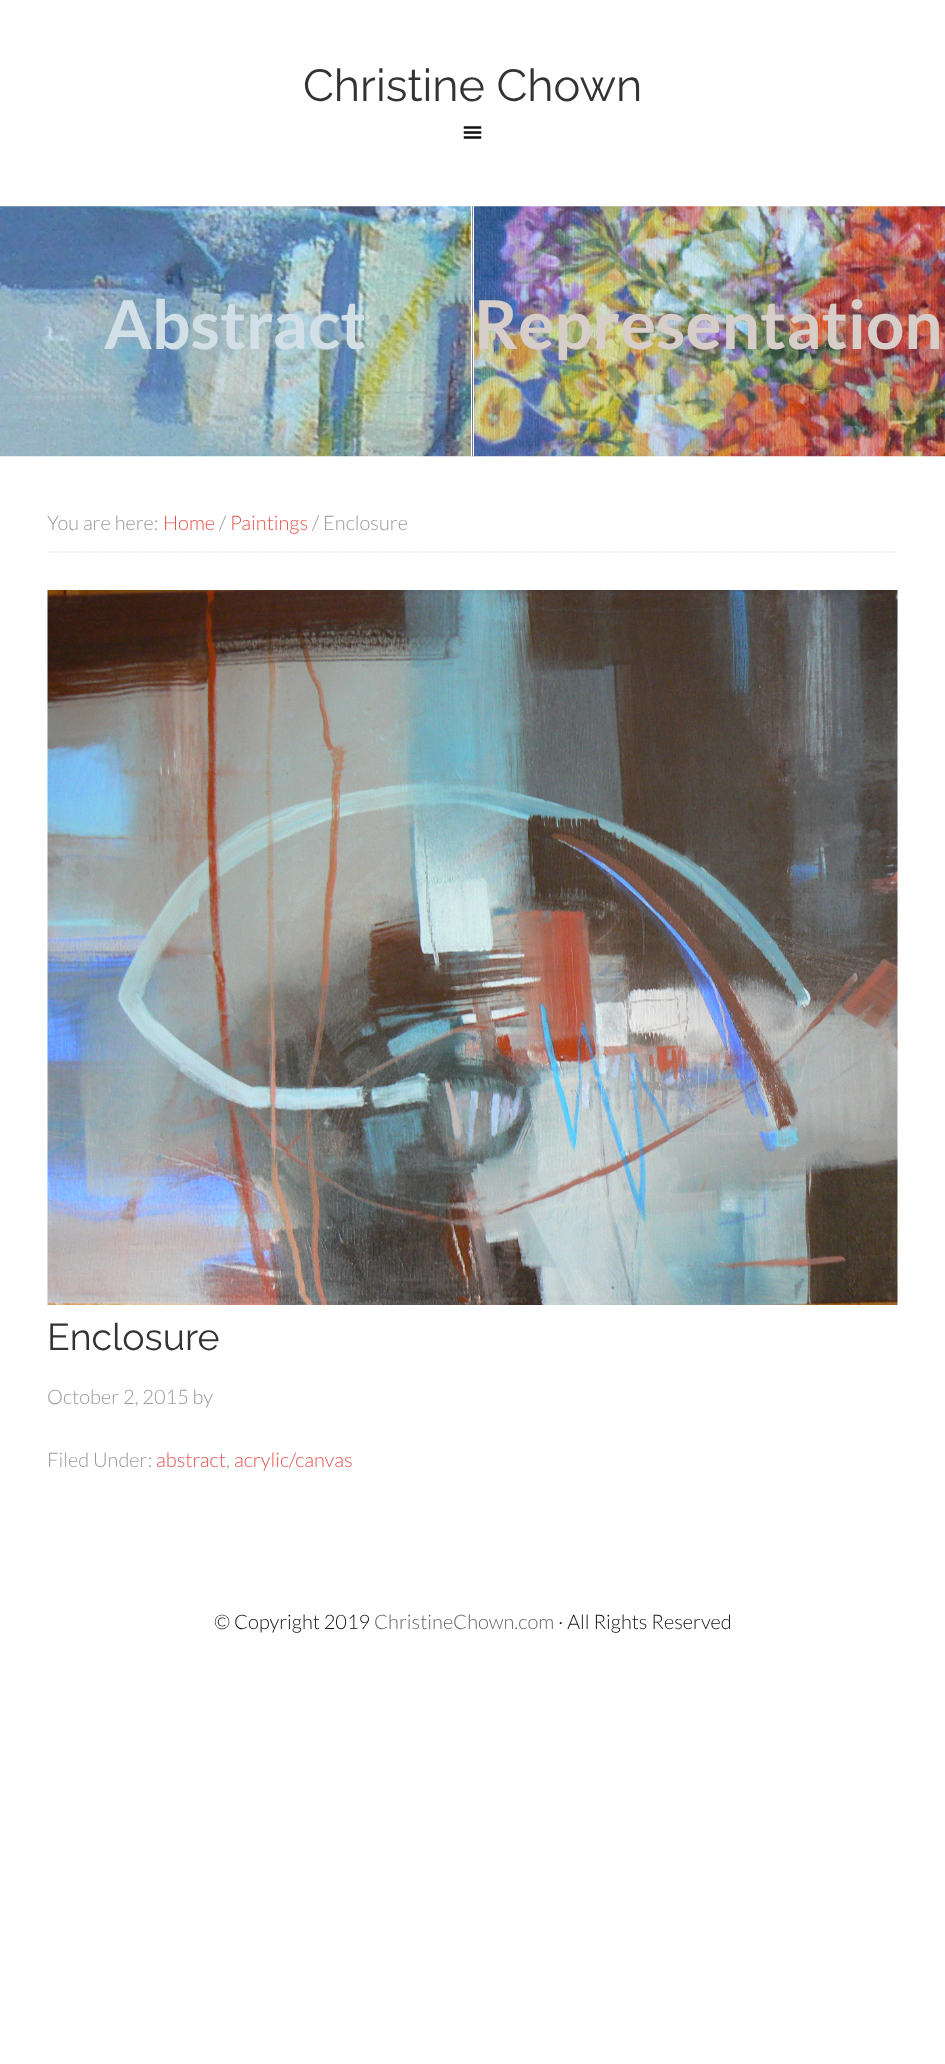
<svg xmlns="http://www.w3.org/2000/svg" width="945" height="2064">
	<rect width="100%" height="100%" fill="#FFFFFF" />
	<text x="303" y="101" font-family="Raleway" font-size="45" fill="#333333">Christine Chown</text>
	<image x="463" y="126" width="19" height="13" href="assets/img1.png" />
	<image x="0" y="206" width="473" height="251" href="assets/img2.png" />
	<rect x="471" y="206" width="1" height="250" fill="#FFFFFF" />
	<text x="104" y="349" font-family="Lato" font-size="67.5" font-weight="700" fill="#D3DFE6">Abstract</text>
	<image x="472" y="206" width="473" height="251" href="assets/img3.png" />
	<rect x="473" y="206" width="1" height="250" fill="#FFFFFF" />
	<text x="474" y="349" font-family="Lato" font-size="67.5" font-weight="700" fill="#D7CEC9">Representation</text>
	<path d="M47.5 552H897.5" fill="none" stroke="#DDDDDD" stroke-width="1.2" stroke-dasharray="1.25 1.25" />
	<text x="47" y="530" font-family="Lato" font-size="20" font-weight="300" fill="#999999">You are here:</text>
	<text x="163" y="530" font-family="Lato" font-size="20" font-weight="300" fill="#E5554E">Home</text>
	<text x="219" y="530" font-family="Lato" font-size="20" font-weight="300" fill="#999999">/</text>
	<text x="230" y="530" font-family="Lato" font-size="20" font-weight="300" fill="#E5554E">Paintings</text>
	<text x="312" y="530" font-family="Lato" font-size="20" font-weight="300" fill="#999999">/ Enclosure</text>
	<image x="47" y="590" width="851" height="715" href="assets/img4.png" />
	<text x="47" y="1350" font-family="Raleway" font-size="37.5" fill="#333333">Enclosure</text>
	<g font-family="Lato" font-size="20" font-weight="300" fill="#999999">
		<text x="47" y="1404">October 2, 2015 by</text>
		<text x="47" y="1467">Filed Under:</text>
	</g>
	<text x="156" y="1467" font-family="Lato" font-size="20" font-weight="300" fill="#E5554E">abstract</text>
	<text x="226" y="1467" font-family="Lato" font-size="20" font-weight="300" fill="#999999">,</text>
	<text x="234" y="1467" font-family="Lato" font-size="20" font-weight="300" fill="#E5554E">acrylic/canvas</text>
	<text x="214" y="1629" font-family="Lato" font-size="20" font-weight="300" fill="#111111">© Copyright 2019</text>
	<text x="374" y="1629" font-family="Lato" font-size="20" font-weight="300" fill="#666666">ChristineChown.com</text>
	<text x="558" y="1629" font-family="Lato" font-size="20" font-weight="300" fill="#111111">· All Rights Reserved</text>
</svg>
